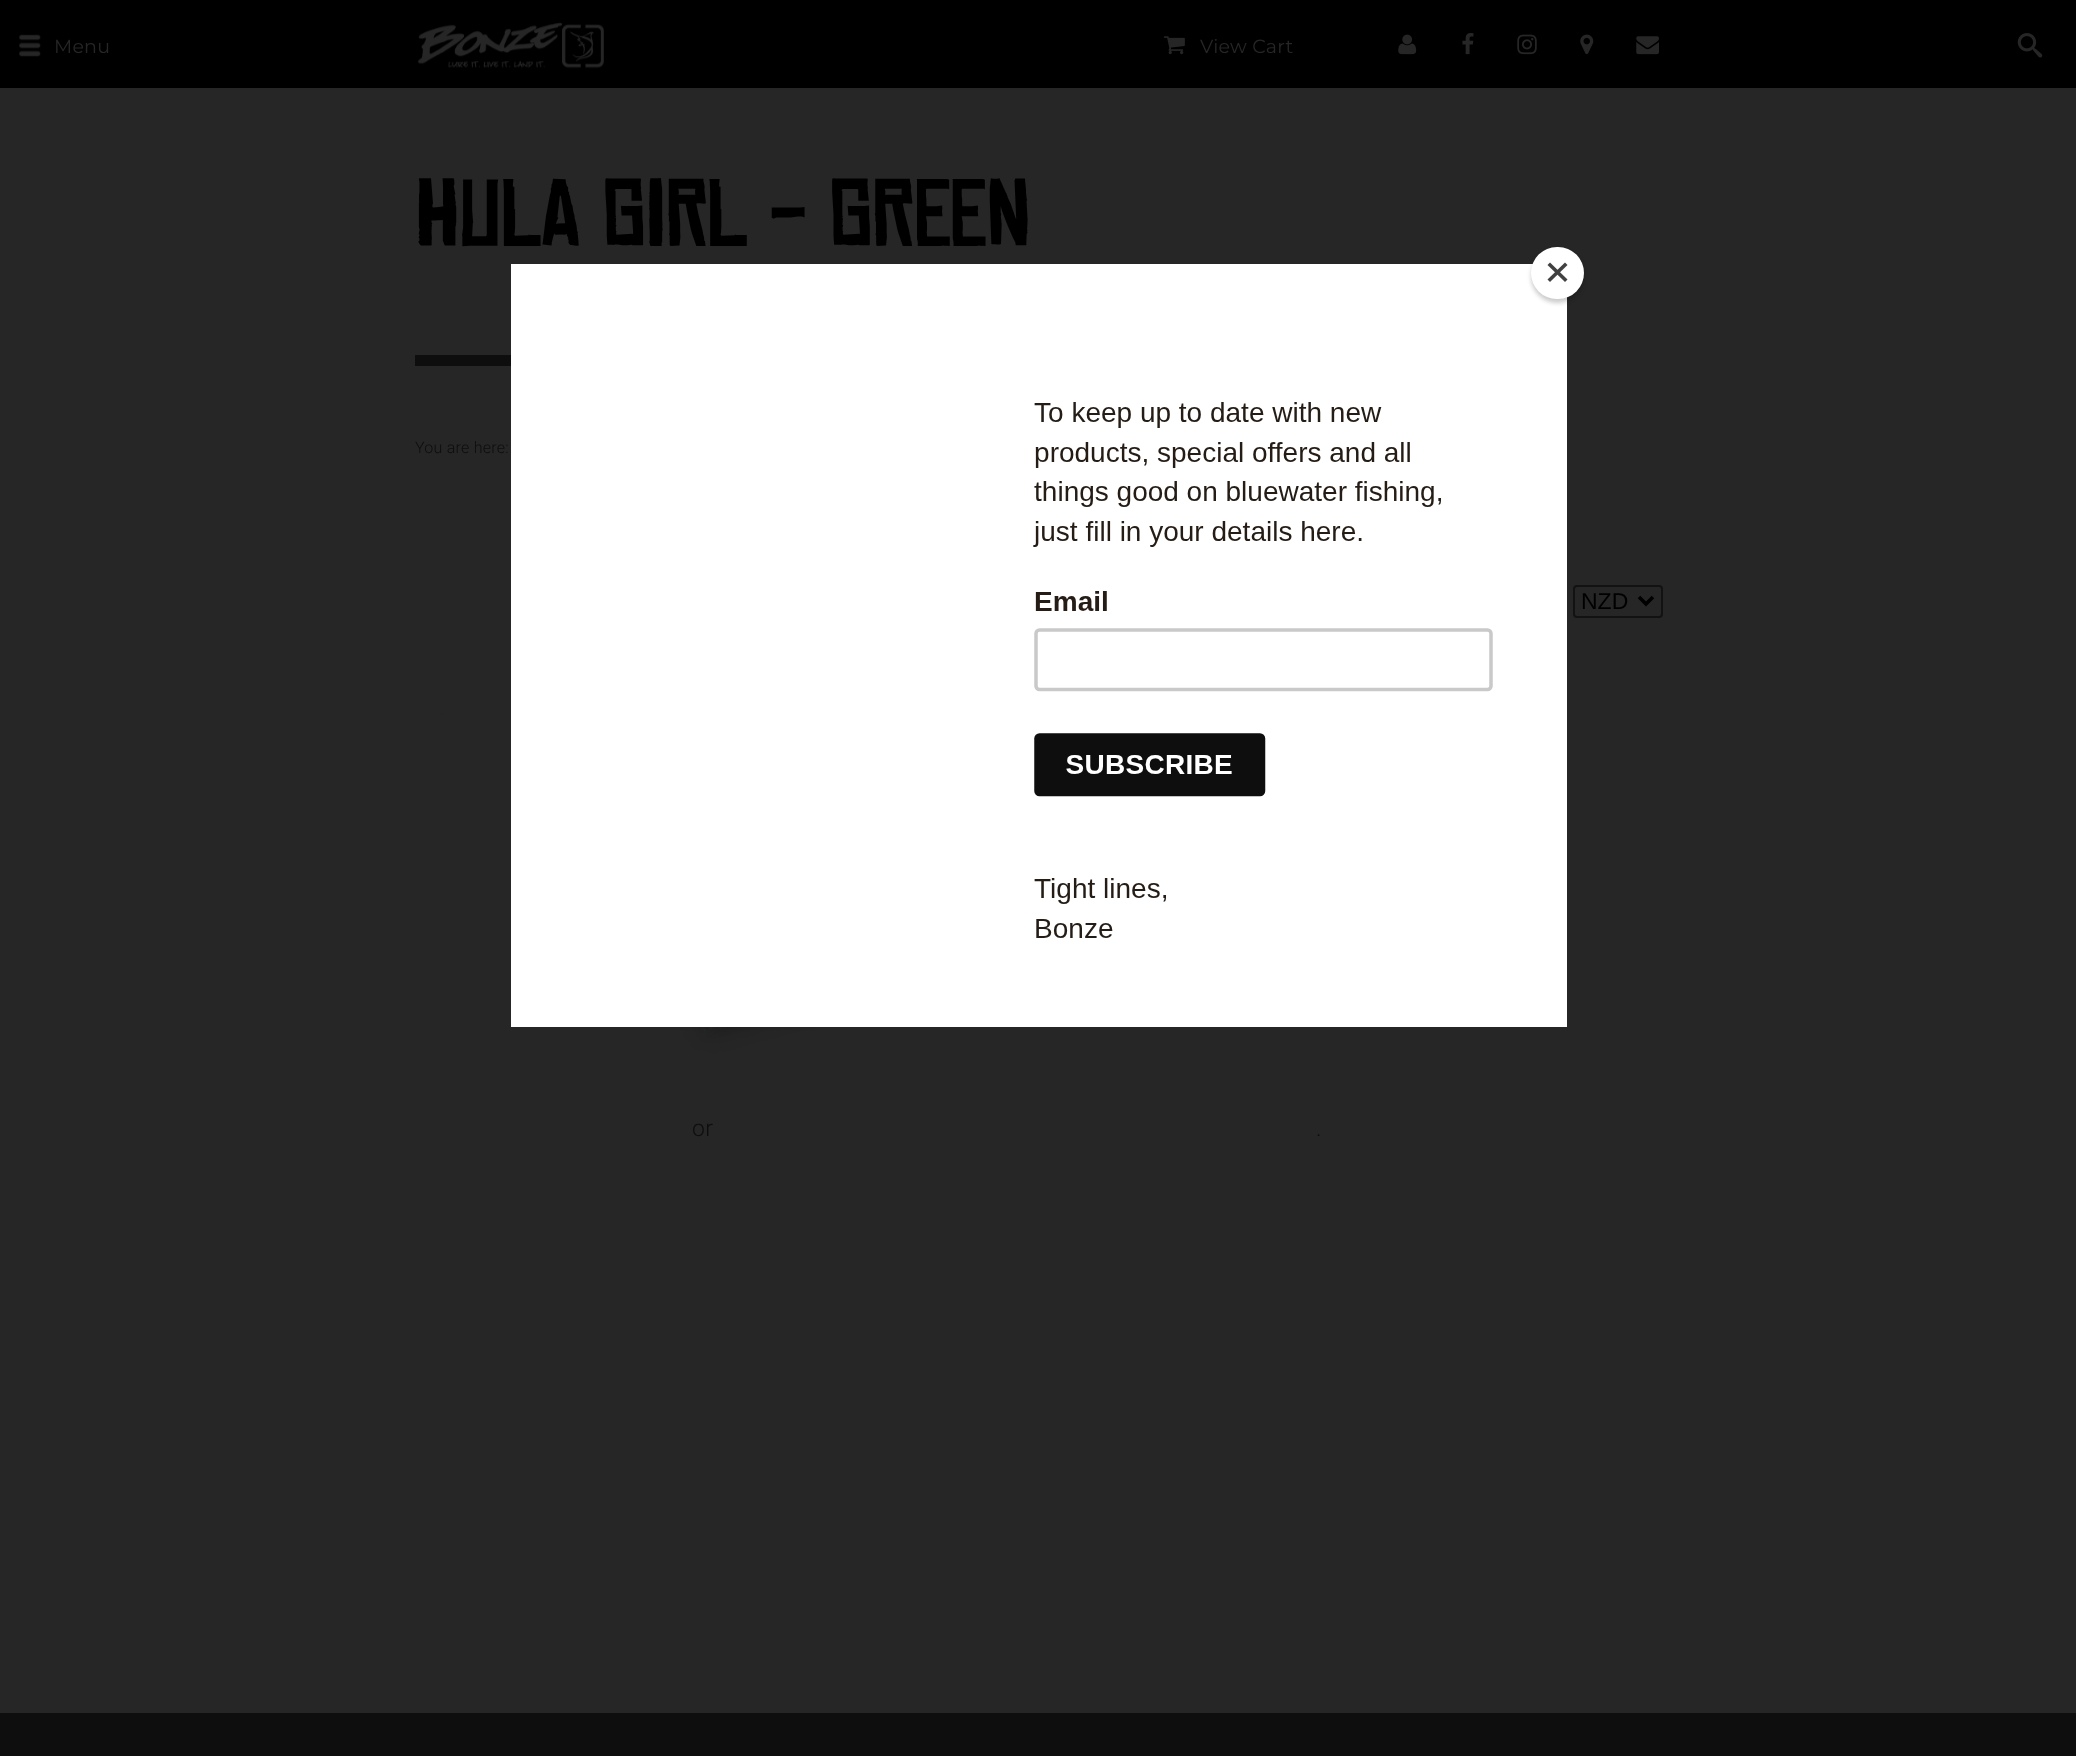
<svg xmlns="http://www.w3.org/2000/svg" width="2076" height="1756">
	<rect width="100%" height="100%" fill="#262626" />
	<rect x="0" y="0" width="2076" height="88" fill="#000000" />
	<image x="19" y="34" width="22" height="23" href="assets/img1.png" />
	<text x="54" y="53" font-family="Montserrat" font-size="19" letter-spacing="0.25" fill="#262626">Menu</text>
	<image x="418" y="22" width="186" height="47" href="assets/img2.png" />
	<image x="1163" y="36" width="22" height="19" href="assets/img3.png" />
	<text x="1200" y="53" font-family="Montserrat" font-size="19" letter-spacing="0.25" fill="#262626">View Cart</text>
	<image x="1398" y="34" width="19" height="21" href="assets/img4.png" />
	<image x="1462" y="33" width="12" height="22" href="assets/img5.png" />
	<image x="1517" y="34" width="20" height="21" href="assets/img6.png" />
	<image x="1580" y="34" width="14" height="21" href="assets/img7.png" />
	<image x="1636" y="36" width="23" height="19" href="assets/img8.png" />
	<image x="2017" y="33" width="26" height="25" href="assets/img9.png" />
	<text x="415" y="246" font-family="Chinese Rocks" font-size="91" fill="#000000">HULA GIRL - GREEN</text>
	<rect x="415" y="355" width="96" height="11" fill="#0E0E0E" />
	<text x="415" y="453" font-family="Roboto" font-size="16" font-weight="300" letter-spacing="0.25" fill="#0E0E0E">You are here:</text>
	<image x="440" y="517" width="522" height="537" href="assets/img10.png" />
	<rect x="1574" y="586" width="88" height="31" rx="3" fill="none" stroke="#121212" stroke-width="2" />
	<path d="M1639 597L1646 604L1653 597" fill="none" stroke="#000000" stroke-width="3.5" />
	<text x="1581" y="609" font-family="Liberation Sans" font-size="23" fill="#000000">NZD</text>
	<g font-family="Roboto" font-size="23" font-weight="300" letter-spacing="0.25" fill="#0E0E0E">
		<text x="692" y="1136">or</text>
		<text x="1316" y="1136">.</text>
	</g>
	<rect x="0" y="1713" width="2076" height="43" fill="#0E0E0E" />
	<image x="511" y="264" width="1056" height="763" href="assets/img11.png" />
	<rect x="1531" y="250" width="53" height="53" rx="26.5" fill="#000000" fill-opacity="0.2" filter="blur(2px)" />
	<rect x="1531" y="247" width="53" height="52" rx="26" fill="#FFFFFF" />
	<path d="M1565 262.5L1567.5 265L1550 282L1547.5 279.5Z" fill="#414141" />
	<path d="M1547.5 265L1550 262.5L1567.5 279.5L1565 282Z" fill="#414141" />
</svg>
